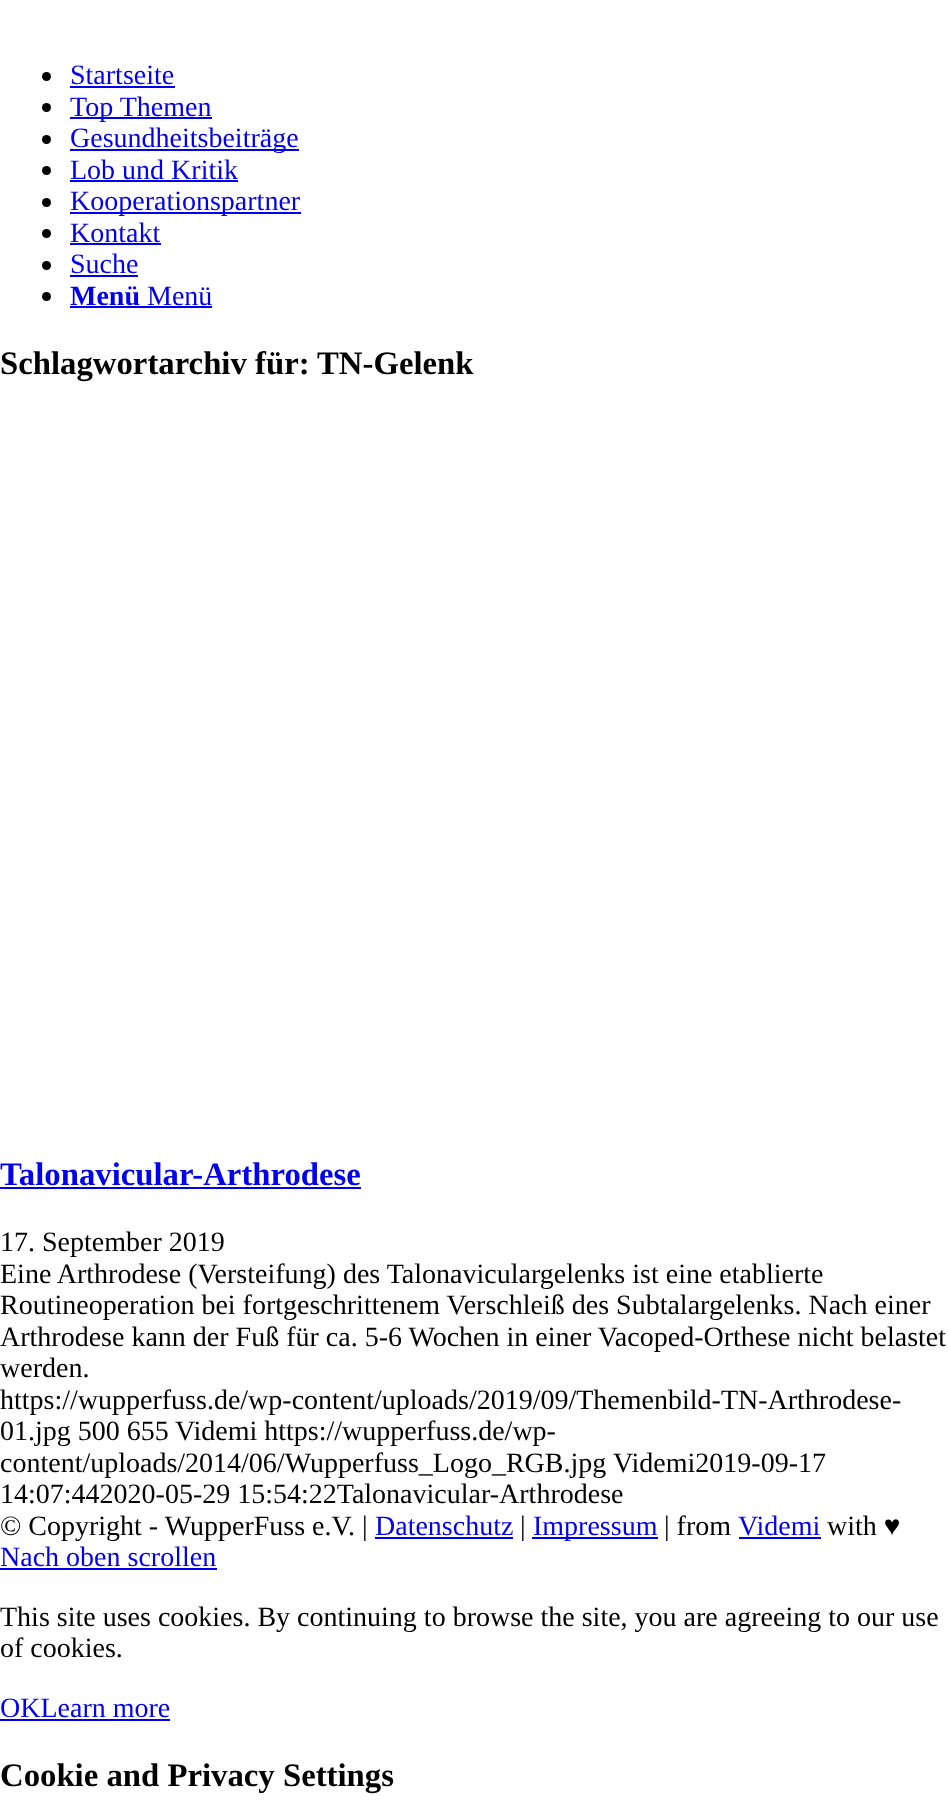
<svg xmlns="http://www.w3.org/2000/svg" width="948" height="1810">
	<rect width="100%" height="100%" fill="#FFFFFF" />
	<circle cx="46.5" cy="76.5" r="4.5" fill="#000000" />
	<text x="70" y="84" font-family="Liberation Serif" font-size="28" fill="#0000EE">Startseite</text>
	<rect x="70" y="86" width="105" height="2" fill="#0000EE" />
	<circle cx="46.5" cy="107.5" r="4.5" fill="#000000" />
	<rect x="70" y="117" width="142" height="2" fill="#0000EE" />
	<text x="70" y="116" font-family="Liberation Serif" font-size="28" fill="#0000EE">Top Themen</text>
	<circle cx="46.5" cy="139.5" r="4.5" fill="#000000" />
	<rect x="70" y="149" width="229" height="2" fill="#0000EE" />
	<text x="70" y="147" font-family="Liberation Serif" font-size="28" fill="#0000EE">Gesundheitsbeiträge</text>
	<circle cx="46.5" cy="170.5" r="4.5" fill="#000000" />
	<text x="70" y="179" font-family="Liberation Serif" font-size="28" fill="#0000EE">Lob und Kritik</text>
	<rect x="70" y="180" width="168" height="2" fill="#0000EE" />
	<circle cx="46.5" cy="202.5" r="4.5" fill="#000000" />
	<rect x="70" y="212" width="231" height="2" fill="#0000EE" />
	<text x="70" y="210" font-family="Liberation Serif" font-size="28" fill="#0000EE">Kooperationspartner</text>
	<circle cx="46.5" cy="233.5" r="4.5" fill="#000000" />
	<text x="70" y="242" font-family="Liberation Serif" font-size="28" fill="#0000EE">Kontakt</text>
	<rect x="70" y="243" width="91" height="2" fill="#0000EE" />
	<circle cx="46.5" cy="265.5" r="4.5" fill="#000000" />
	<text x="70" y="273" font-family="Liberation Serif" font-size="28" fill="#0000EE">Suche</text>
	<rect x="70" y="275" width="68" height="2" fill="#0000EE" />
	<circle cx="46.5" cy="296.5" r="4.5" fill="#000000" />
	<text x="70" y="305" font-family="Liberation Serif" font-size="28" font-weight="700" fill="#0000EE">Menü</text>
	<rect x="70" y="306" width="142" height="2" fill="#0000EE" />
	<text x="147" y="305" font-family="Liberation Serif" font-size="28" fill="#0000EE">Menü</text>
	<g font-family="Liberation Serif" font-size="32.75" font-weight="700" fill="#000000">
		<text x="0" y="374">Schlagwortarchiv für:</text>
		<text x="317" y="374">TN-Gelenk</text>
	</g>
	<text x="0" y="1185" font-family="Liberation Serif" font-size="32.75" font-weight="700" fill="#0000EE">Talonavicular-Arthrodese</text>
	<rect x="0" y="1187" width="361" height="2" fill="#0000EE" />
	<g font-family="Liberation Serif" font-size="28" fill="#000000">
		<text x="0" y="1251">17. September 2019</text>
		<text x="0" y="1283">Eine Arthrodese (Versteifung) des Talonaviculargelenks ist eine etablierte</text>
		<text x="0" y="1314">Routineoperation bei fortgeschrittenem Verschleiß des Subtalargelenks. Nach einer</text>
		<text x="0" y="1346">Arthrodese kann der Fuß für ca. 5-6 Wochen in einer Vacoped-Orthese nicht belastet</text>
		<text x="0" y="1377">werden.</text>
		<text x="0" y="1409">https://wupperfuss.de/wp-content/uploads/2019/09/Themenbild-TN-Arthrodese-</text>
		<text x="0" y="1440">01.jpg 500 655</text>
		<text x="175" y="1440">Videmi https://wupperfuss.de/wp-</text>
		<text x="0" y="1472">content/uploads/2014/06/Wupperfuss_Logo_RGB.jpg</text>
		<text x="613" y="1472">Videmi2019-09-17</text>
		<text x="0" y="1503">14:07:442020-05-29 15:54:22Talonavicular-Arthrodese</text>
		<text x="0" y="1535">© Copyright - WupperFuss e.V. |</text>
	</g>
	<text x="375" y="1535" font-family="Liberation Serif" font-size="28" fill="#0000EE">Datenschutz</text>
	<rect x="375" y="1537" width="138" height="2" fill="#0000EE" />
	<text x="520" y="1535" font-family="Liberation Serif" font-size="28" fill="#000000">|</text>
	<rect x="532" y="1537" width="126" height="2" fill="#0000EE" />
	<text x="533" y="1535" font-family="Liberation Serif" font-size="28" fill="#0000EE">Impressum</text>
	<text x="664" y="1535" font-family="Liberation Serif" font-size="28" fill="#000000">| from</text>
	<text x="738" y="1535" font-family="Liberation Serif" font-size="28" fill="#0000EE">Videmi</text>
	<rect x="739" y="1537" width="82" height="2" fill="#0000EE" />
	<text x="827" y="1535" font-family="Liberation Serif" font-size="28" fill="#000000">with ♥︎</text>
	<text x="0" y="1566" font-family="Liberation Serif" font-size="28" fill="#0000EE">Nach oben scrollen</text>
	<rect x="0" y="1568" width="217" height="2" fill="#0000EE" />
	<g font-family="Liberation Serif" font-size="28" fill="#000000">
		<text x="0" y="1626">This site uses cookies. By continuing to browse the site, you are agreeing to our use</text>
		<text x="0" y="1657">of cookies.</text>
	</g>
	<text x="0" y="1717" font-family="Liberation Serif" font-size="28" fill="#0000EE">OKLearn more</text>
	<rect x="0" y="1719" width="170" height="2" fill="#0000EE" />
	<text x="0" y="1786" font-family="Liberation Serif" font-size="32.75" font-weight="700" fill="#000000">Cookie and Privacy Settings</text>
</svg>
